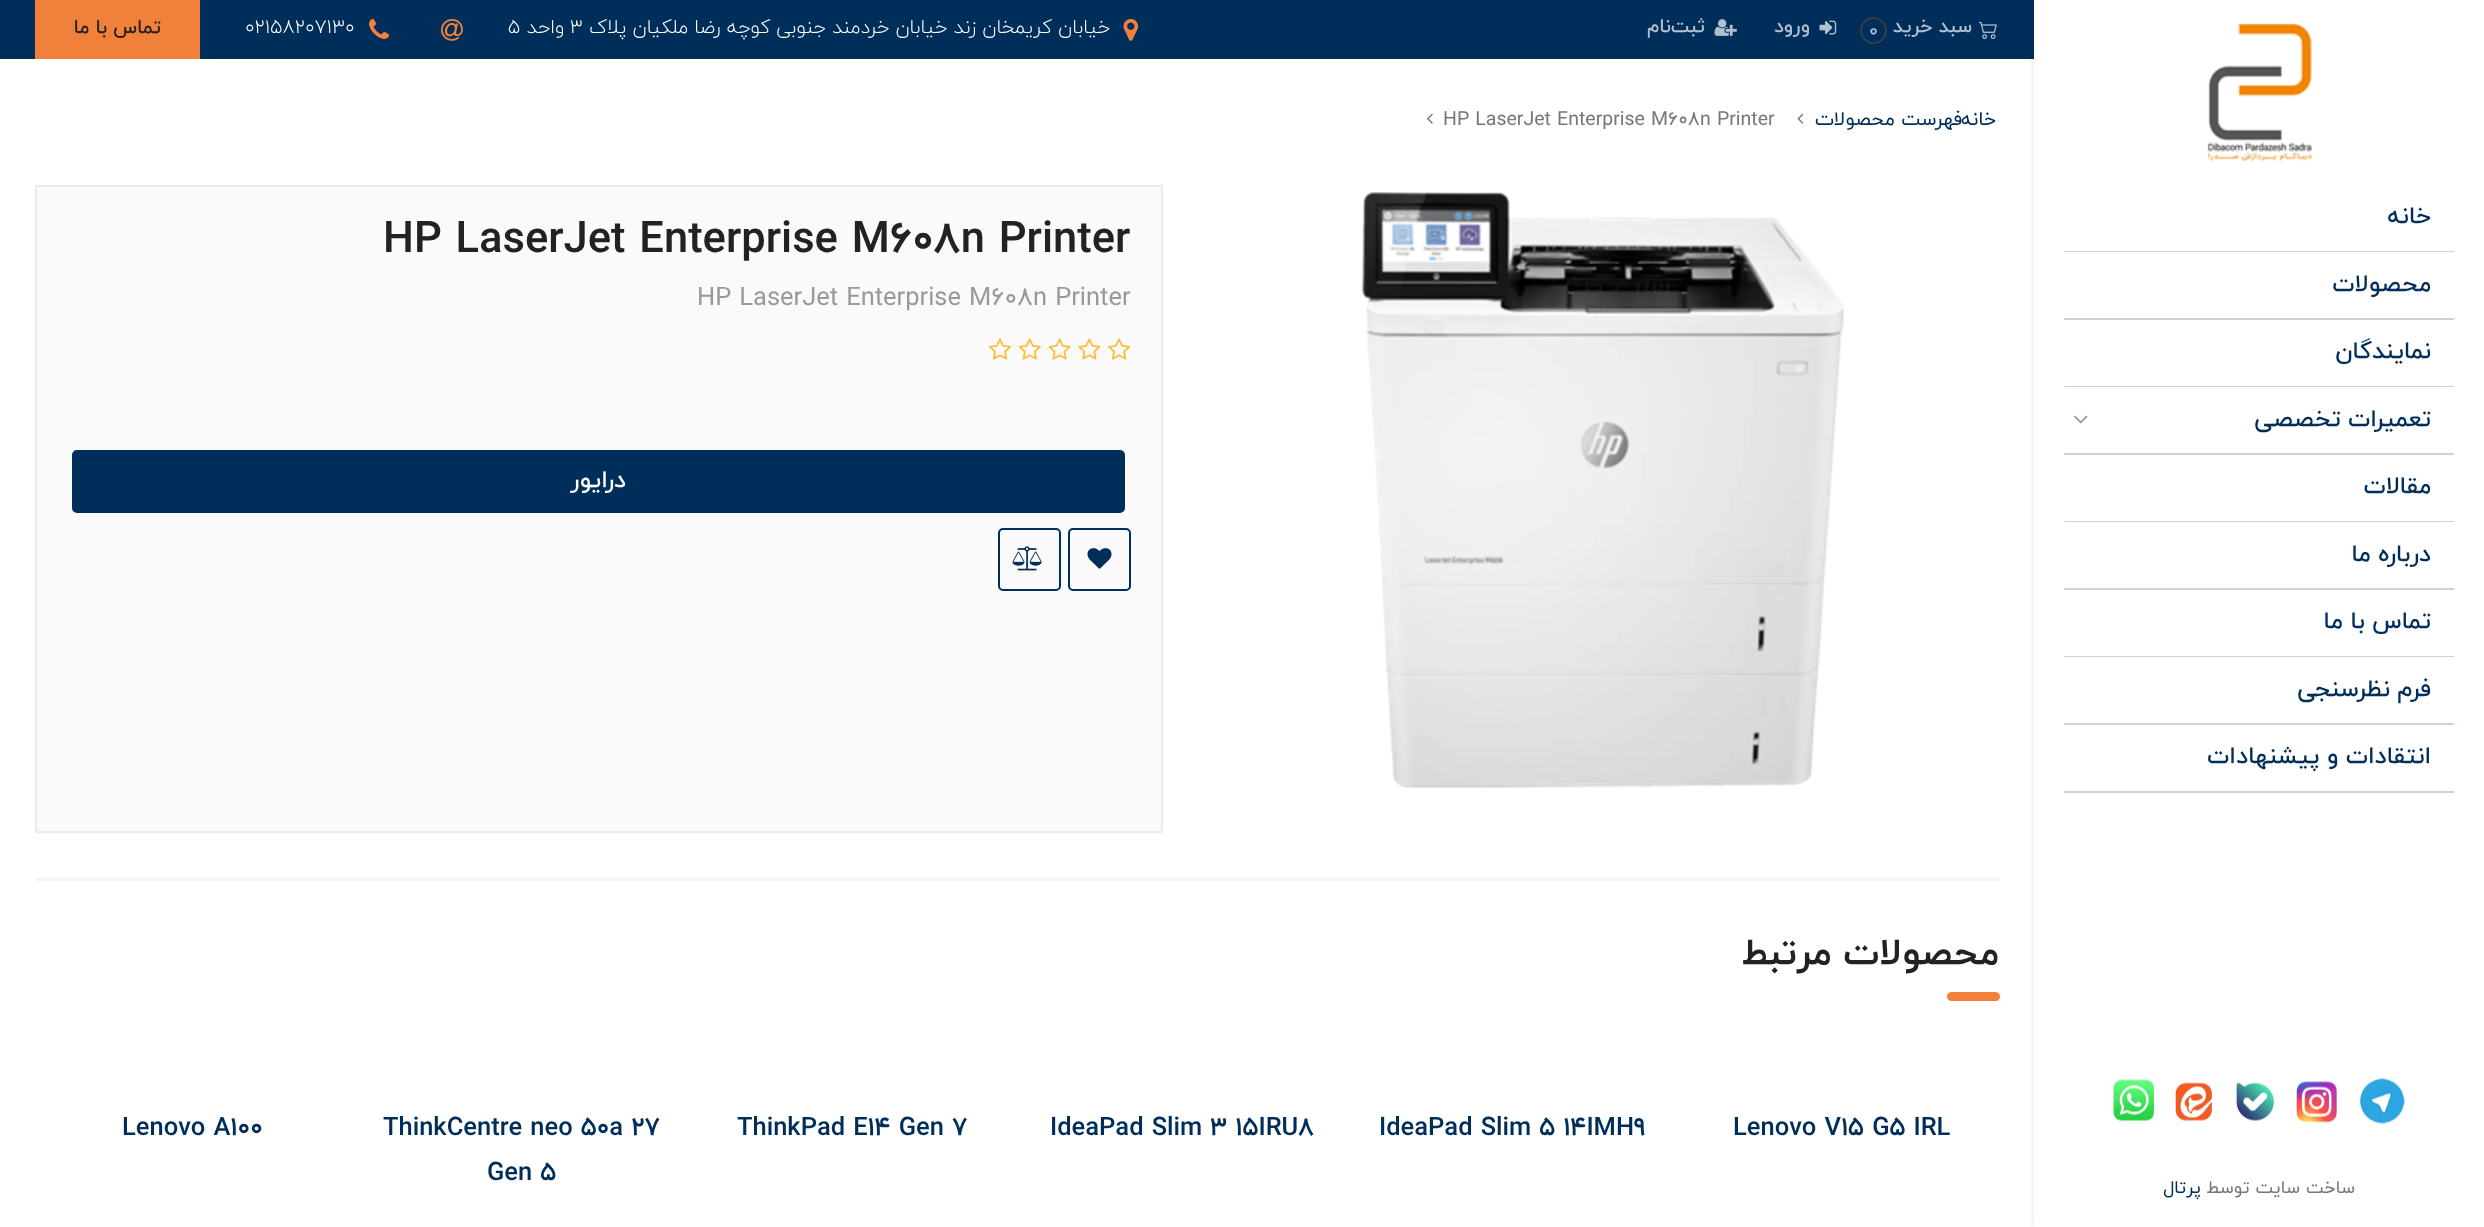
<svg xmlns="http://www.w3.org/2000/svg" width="2484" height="1227">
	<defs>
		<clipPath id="clip1"><rect x="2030" y="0" width="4" height="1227" /></clipPath>
	</defs>
	<rect width="100%" height="100%" fill="#FFFFFF" />
	<rect x="0" y="0" width="2034" height="59" fill="#002E5B" />
	<rect x="35" y="0" width="165" height="59" fill="#F1803A" />
	<text x="161" y="33" font-family="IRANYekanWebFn" font-size="19.5" font-weight="500" direction="rtl" fill="#222222">تماس با ما</text>
	<text x="245" y="33" font-family="IRANYekanWebFn" font-size="19.5" font-weight="300" fill="#FFFFFF">02158207130</text>
	<image x="369" y="19" width="20" height="20" href="assets/img1.png" />
	<image x="441" y="19" width="22" height="22" href="assets/img2.png" />
	<text x="508" y="33" font-family="IRANYekanWebFn" font-size="19.5" font-weight="300" fill="#FFFFFF">5</text>
	<text x="564" y="33" font-family="IRANYekanWebFn" font-size="19.5" font-weight="300" direction="rtl" fill="#FFFFFF">واحد</text>
	<text x="570" y="33" font-family="IRANYekanWebFn" font-size="19.5" font-weight="300" fill="#FFFFFF">3</text>
	<text x="1110" y="33" font-family="IRANYekanWebFn" font-size="19.5" font-weight="300" direction="rtl" fill="#FFFFFF">خیابان کریمخان زند خیابان خردمند جنوبی کوچه رضا ملکیان پلاک</text>
	<image x="1123" y="19" width="16" height="22" href="assets/img3.png" />
	<text x="1705" y="32" font-family="IRANYekanWebFn" font-size="19.5" font-weight="500" direction="rtl" fill="#B3C0CE">ثبت‌نام</text>
	<image x="1714" y="19" width="23" height="17" href="assets/img4.png" />
	<text x="1810" y="32" font-family="IRANYekanWebFn" font-size="19.5" font-weight="500" direction="rtl" fill="#B3C0CE">ورود</text>
	<image x="1819" y="20" width="18" height="15" href="assets/img5.png" />
	<circle cx="1873.5" cy="30.5" r="12.5" fill="none" stroke="#3B3D42" stroke-width="2" />
	<text x="1869" y="36" font-family="IRANYekanWebFn" font-size="18" font-weight="500" fill="#B3C0CE">0</text>
	<text x="1972" y="32" font-family="IRANYekanWebFn" font-size="19.5" font-weight="500" direction="rtl" fill="#B3C0CE">سبد خرید</text>
	<image x="1979" y="21" width="18" height="18" href="assets/img6.png" />
	<g clip-path="url(#clip1)">
		<rect x="2036" y="0" width="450" height="1227" fill="#000000" fill-opacity="0.2" filter="blur(4.5px)" />
	</g>
	<image x="2207" y="23" width="106" height="140" href="assets/img7.png" />
	<rect x="2064" y="251" width="390" height="1" fill="#C9D3DD" />
	<text x="2431" y="223" font-family="IRANYekanWebFn" font-size="24" font-weight="500" direction="rtl" fill="#002E5B">خانه</text>
	<rect x="2064" y="318" width="390" height="2" fill="#C9D3DD" />
	<text x="2431" y="291" font-family="IRANYekanWebFn" font-size="24" font-weight="500" direction="rtl" fill="#002E5B">محصولات</text>
	<rect x="2064" y="386" width="390" height="1" fill="#C9D3DD" />
	<text x="2431" y="358" font-family="IRANYekanWebFn" font-size="24" font-weight="500" direction="rtl" fill="#002E5B">نمایندگان</text>
	<image x="2074" y="415" width="14" height="9" href="assets/img8.png" />
	<rect x="2064" y="453" width="390" height="2" fill="#C9D3DD" />
	<text x="2431" y="426" font-family="IRANYekanWebFn" font-size="24" font-weight="500" direction="rtl" fill="#002E5B">تعمیرات تخصصی</text>
	<rect x="2064" y="521" width="390" height="1" fill="#C9D3DD" />
	<text x="2431" y="493" font-family="IRANYekanWebFn" font-size="24" font-weight="500" direction="rtl" fill="#002E5B">مقالات</text>
	<rect x="2064" y="588" width="390" height="2" fill="#C9D3DD" />
	<text x="2431" y="561" font-family="IRANYekanWebFn" font-size="24" font-weight="500" direction="rtl" fill="#002E5B">درباره ما</text>
	<rect x="2064" y="656" width="390" height="1" fill="#C9D3DD" />
	<text x="2431" y="628" font-family="IRANYekanWebFn" font-size="24" font-weight="500" direction="rtl" fill="#002E5B">تماس با ما</text>
	<rect x="2064" y="723" width="390" height="2" fill="#C9D3DD" />
	<text x="2431" y="696" font-family="IRANYekanWebFn" font-size="24" font-weight="500" direction="rtl" fill="#002E5B">فرم نظرسنجی</text>
	<rect x="2064" y="791" width="390" height="2" fill="#C9D3DD" />
	<text x="2431" y="763" font-family="IRANYekanWebFn" font-size="24" font-weight="500" direction="rtl" fill="#002E5B">انتقادات و پیشنهادات</text>
	<image x="2113" y="1079" width="41" height="42" href="assets/img9.png" />
	<image x="2175" y="1082" width="37" height="39" href="assets/img10.png" />
	<image x="2236" y="1082" width="38" height="39" href="assets/img11.png" />
	<image x="2296" y="1081" width="41" height="42" href="assets/img12.png" />
	<image x="2360" y="1078" width="45" height="46" href="assets/img13.png" />
	<text x="2201" y="1193" font-family="IRANYekanWebFn" font-size="18" direction="rtl" fill="#002E5B">پرتال</text>
	<text x="2355" y="1193" font-family="IRANYekanWebFn" font-size="18" direction="rtl" fill="#777777">ساخت سایت توسط</text>
	<image x="1427" y="113" width="6" height="11" href="assets/img14.png" />
	<text x="1443" y="125" font-family="IRANYekanWebFn" font-size="19.5" fill="#777777">HP LaserJet Enterprise M608n Printer</text>
	<image x="1797" y="113" width="7" height="11" href="assets/img15.png" />
	<g font-family="IRANYekanWebFn" font-size="19.5" direction="rtl" fill="#002E5B">
		<text x="1962" y="125">فهرست محصولات</text>
		<text x="1996" y="125">خانه</text>
	</g>
	<rect x="36" y="186" width="1126" height="646" fill="#FAFAFA" stroke="#EAEAEA" stroke-width="2" />
	<text x="383" y="252" font-family="IRANYekanWebFn" font-size="43.5" font-weight="700" fill="#222222">HP LaserJet Enterprise M608n Printer</text>
	<text x="697" y="305" font-family="IRANYekanWebFn" font-size="25.5" fill="#999999">HP LaserJet Enterprise M608n Printer</text>
	<image x="988" y="338" width="24" height="22" href="assets/img16.png" />
	<image x="1018" y="338" width="23" height="22" href="assets/img17.png" />
	<image x="1048" y="338" width="23" height="22" href="assets/img18.png" />
	<image x="1078" y="338" width="23" height="22" href="assets/img19.png" />
	<image x="1108" y="338" width="23" height="22" href="assets/img20.png" />
	<rect x="73" y="451" width="1051" height="61" rx="4" fill="#002E5B" stroke="#002E5B" stroke-width="2" />
	<text x="626" y="487" font-family="IRANYekanWebFn" font-size="24" font-weight="500" direction="rtl" fill="#FFFFFF">درایور</text>
	<rect x="999" y="529" width="61" height="61" rx="4" fill="none" stroke="#002E5B" stroke-width="2" />
	<image x="1012" y="546" width="30" height="25" href="assets/img21.png" />
	<rect x="1069" y="529" width="61" height="61" rx="4" fill="none" stroke="#002E5B" stroke-width="2" />
	<image x="1087" y="548" width="25" height="21" href="assets/img22.png" />
	<image x="1361" y="192" width="484" height="596" href="assets/img23.png" />
	<rect x="35" y="878" width="1965" height="3" fill="#F5F5F5" />
	<text x="1999" y="964" font-family="IRANYekanWebFn" font-size="37.5" font-weight="700" direction="rtl" fill="#222222">محصولات مرتبط</text>
	<rect x="1947" y="992" width="53" height="9" rx="4.5" fill="#F1803A" />
	<g font-family="IRANYekanWebFn" font-size="25.5" font-weight="700" fill="#002E5B">
		<text x="122" y="1135">Lenovo A100</text>
		<text x="383" y="1135">ThinkCentre neo 50a 27</text>
		<text x="487" y="1180">Gen 5</text>
		<text x="737" y="1135">ThinkPad E14 Gen 7</text>
		<text x="1050" y="1135">IdeaPad Slim 3 15IRU8</text>
		<text x="1379" y="1135">IdeaPad Slim 5 14IMH9</text>
		<text x="1733" y="1135">Lenovo V15 G5 IRL</text>
	</g>
</svg>
